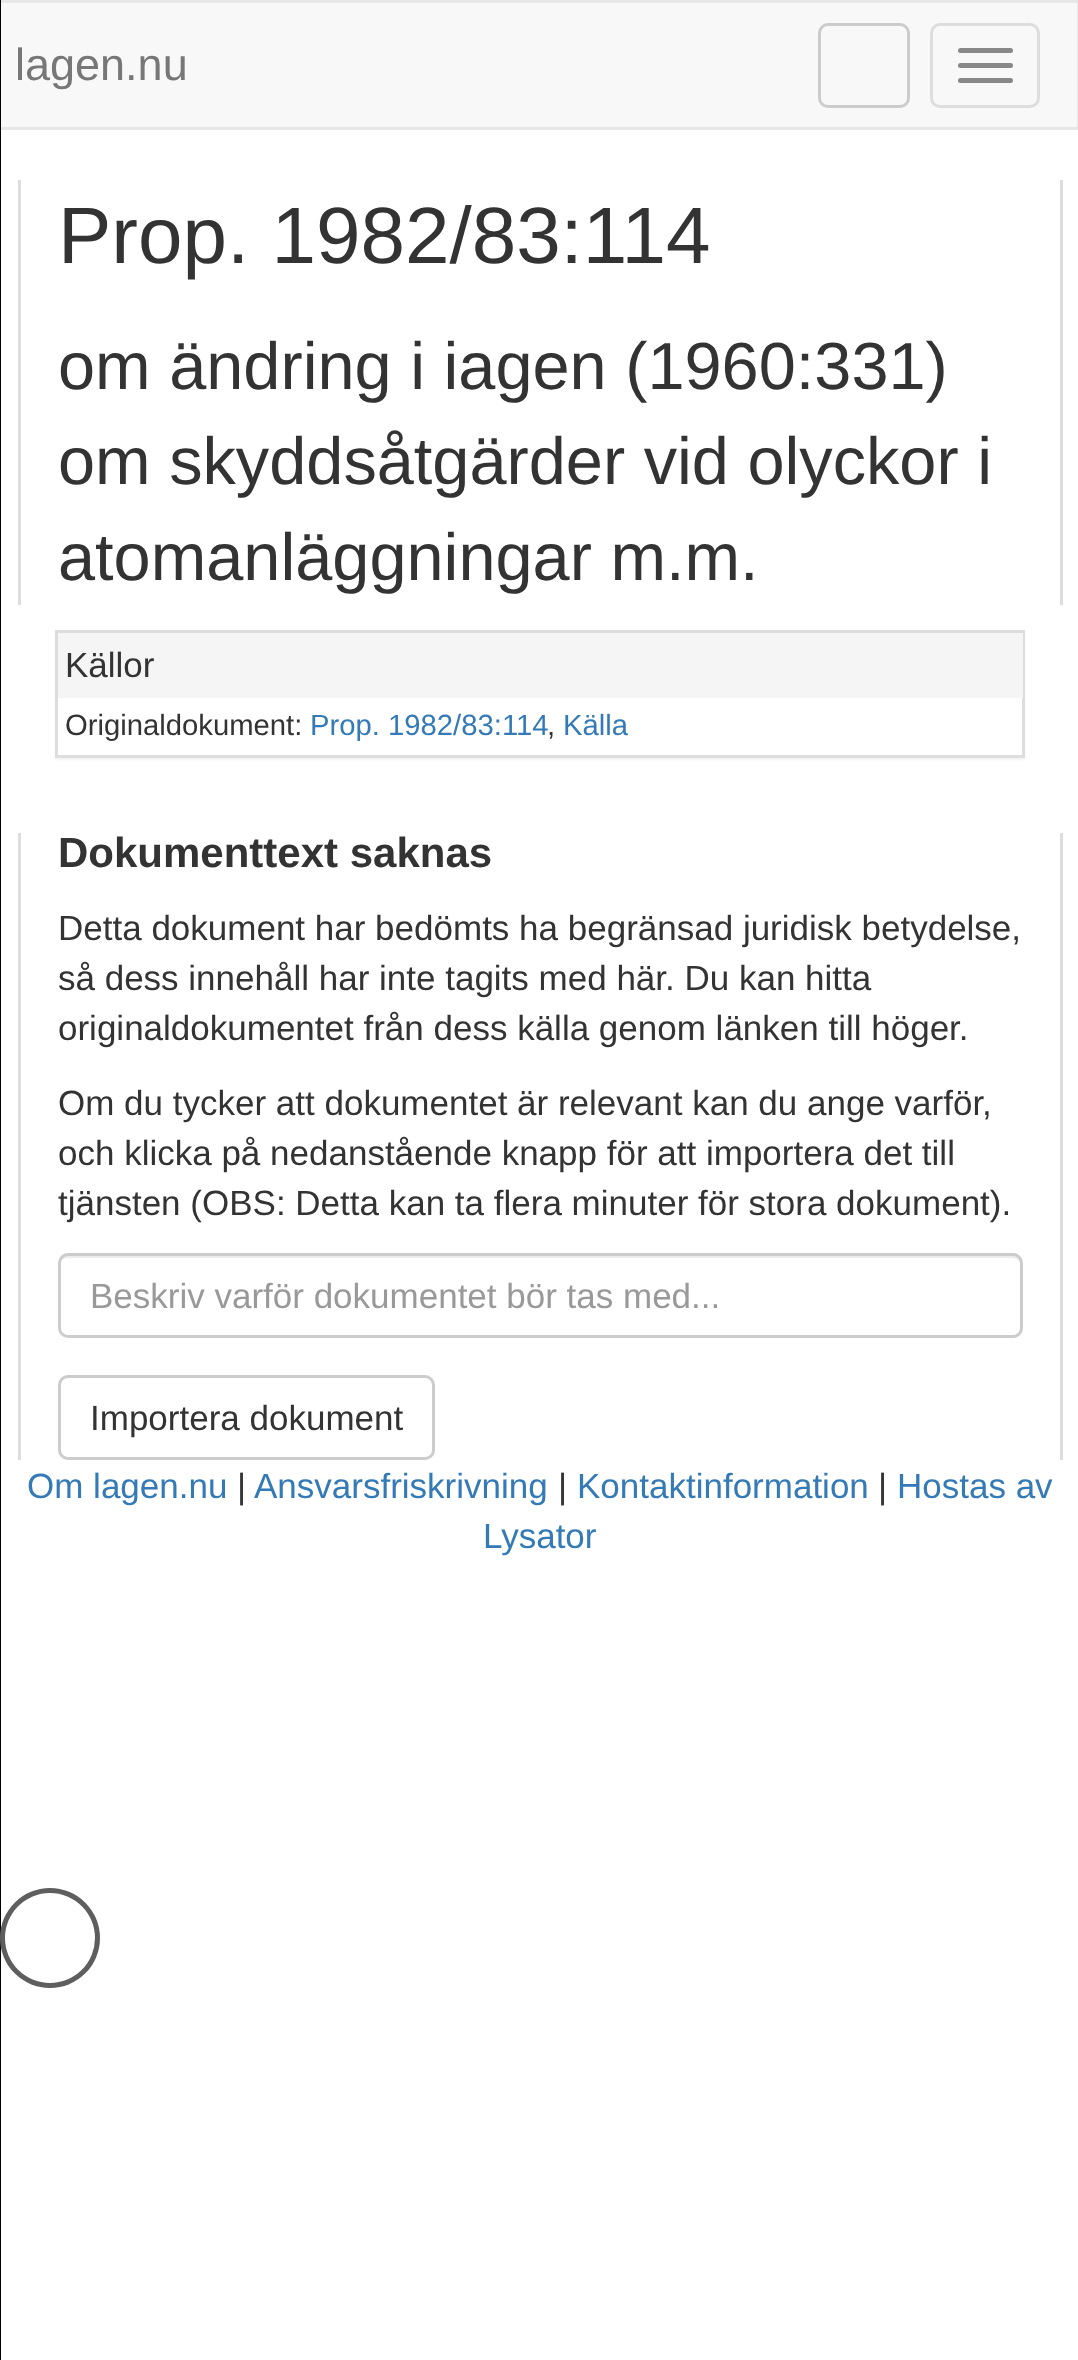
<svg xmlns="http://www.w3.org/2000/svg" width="1078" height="2360">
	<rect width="100%" height="100%" fill="#FFFFFF" />
	<rect x="1" y="3" width="1076" height="124" fill="#F8F8F8" />
	<rect x="-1.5" y="1.5" width="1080" height="127" fill="none" stroke="#E7E7E7" stroke-width="3" />
	<text x="15" y="80" font-family="Liberation Sans" font-size="45" fill="#777777">lagen.nu</text>
	<rect x="819.5" y="24.5" width="89" height="82" rx="8.5" fill="none" stroke="#CCCCCC" stroke-width="3" />
	<rect x="931.5" y="24.5" width="107" height="82" rx="8.5" fill="none" stroke="#DDDDDD" stroke-width="3" />
	<rect x="958" y="48" width="55" height="5" rx="2.5" fill="#888888" />
	<rect x="958" y="63" width="55" height="5" rx="2.5" fill="#888888" />
	<rect x="958" y="78" width="55" height="5" rx="2.5" fill="#888888" />
	<rect x="0" y="0" width="1" height="2360" fill="#000000" />
	<circle cx="50" cy="1938" r="50" fill="#5E5E5E" />
	<circle cx="50" cy="1938" r="45" fill="#FFFFFF" />
	<rect x="1060" y="180" width="3" height="425" fill="#DDDDDD" />
	<rect x="18" y="180" width="3" height="425" fill="#DDDDDD" />
	<text x="58" y="263" font-family="Liberation Sans" font-size="80" fill="#333333">Prop. 1982/83:114</text>
	<g font-family="Liberation Sans" font-size="66.7" fill="#333333">
		<text x="58" y="389">om ändring i iagen (1960:331)</text>
		<text x="58" y="484">om skyddsåtgärder vid olyckor i</text>
		<text x="58" y="580">atomanläggningar m.m.</text>
	</g>
	<rect x="55" y="633" width="970" height="127" fill="#000000" fill-opacity="0.05" filter="blur(1px)" />
	<rect x="58" y="698" width="964" height="57" fill="#FFFFFF" />
	<rect x="56.5" y="631.5" width="967" height="125" fill="none" stroke="#DDDDDD" stroke-width="3" />
	<rect x="58" y="633" width="965" height="65" fill="#F5F5F5" />
	<text x="65" y="677" font-family="Liberation Sans" font-size="35" fill="#333333">Källor</text>
	<text x="65" y="735" font-family="Liberation Sans" font-size="29.25" fill="#333333">Originaldokument:</text>
	<text x="310" y="735" font-family="Liberation Sans" font-size="29.25" fill="#337AB7">Prop. 1982/83:114</text>
	<text x="547" y="735" font-family="Liberation Sans" font-size="29.25" fill="#333333">,</text>
	<text x="563" y="735" font-family="Liberation Sans" font-size="29.25" fill="#337AB7">Källa</text>
	<rect x="1060" y="833" width="3" height="627" fill="#DDDDDD" />
	<rect x="18" y="833" width="3" height="627" fill="#DDDDDD" />
	<text x="58" y="867" font-family="Liberation Sans" font-size="42" font-weight="700" fill="#333333">Dokumenttext saknas</text>
	<g font-family="Liberation Sans" font-size="35" fill="#333333">
		<text x="58" y="940">Detta dokument har bedömts ha begränsad juridisk betydelse,</text>
		<text x="58" y="990">så dess innehåll har inte tagits med här. Du kan hitta</text>
		<text x="58" y="1040">originaldokumentet från dess källa genom länken till höger.</text>
		<text x="58" y="1115">Om du tycker att dokumentet är relevant kan du ange varför,</text>
		<text x="58" y="1165">och klicka på nedanstående knapp för att importera det till</text>
		<text x="58" y="1215">tjänsten (OBS: Detta kan ta flera minuter för stora dokument).</text>
	</g>
	<path d="M68 1258H1012C1017 1258 1020 1261 1020 1265C1020 1260 1018 1255 1012 1255H68C62 1255 60 1260 60 1265C60 1261 63 1258 68 1258Z" fill="#ECECEC" />
	<rect x="59.5" y="1254.5" width="962" height="82" rx="8.5" fill="none" stroke="#CCCCCC" stroke-width="3" />
	<text x="90" y="1308" font-family="Liberation Sans" font-size="35" fill="#999999">Beskriv varför dokumentet bör tas med...</text>
	<rect x="59.5" y="1376.5" width="374" height="82" rx="8.5" fill="none" stroke="#CCCCCC" stroke-width="3" />
	<text x="90" y="1430" font-family="Liberation Sans" font-size="35" fill="#333333">Importera dokument</text>
	<text x="27" y="1498" font-family="Liberation Sans" font-size="35" fill="#337AB7">Om lagen.nu</text>
	<text x="237" y="1498" font-family="Liberation Sans" font-size="35" fill="#333333">|</text>
	<text x="254" y="1498" font-family="Liberation Sans" font-size="35" fill="#337AB7">Ansvarsfriskrivning</text>
	<text x="558" y="1498" font-family="Liberation Sans" font-size="35" fill="#333333">|</text>
	<text x="577" y="1498" font-family="Liberation Sans" font-size="35" fill="#337AB7">Kontaktinformation</text>
	<text x="878" y="1498" font-family="Liberation Sans" font-size="35" fill="#333333">|</text>
	<g font-family="Liberation Sans" font-size="35" fill="#337AB7">
		<text x="897" y="1498">Hostas av</text>
		<text x="483" y="1548">Lysator</text>
	</g>
</svg>
